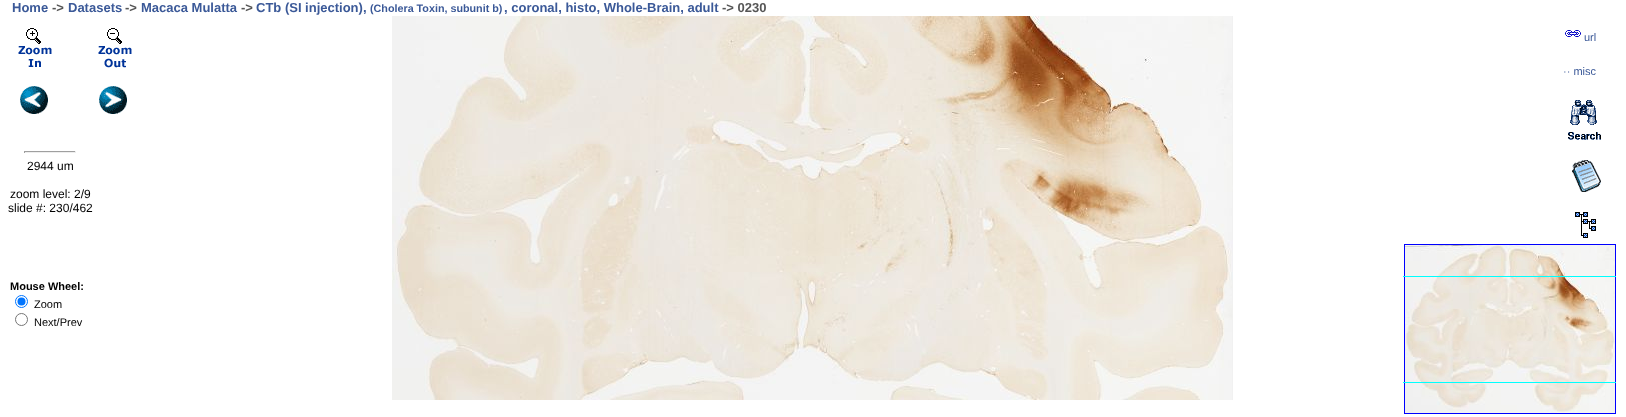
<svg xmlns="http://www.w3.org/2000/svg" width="1626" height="417">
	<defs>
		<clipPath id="clip1"><rect x="1403" y="244" width="213" height="171" /></clipPath>
	</defs>
	<rect width="100%" height="100%" fill="#FFFFFF" />
	<text x="12" y="12" font-family="Liberation Sans" font-size="13" font-weight="700" fill="#3B5998">Home</text>
	<text x="52" y="12" font-family="Liberation Sans" font-size="13" font-weight="700" fill="#555555">-&gt;</text>
	<text x="68" y="12" font-family="Liberation Sans" font-size="13" font-weight="700" fill="#3B5998">Datasets</text>
	<text x="125" y="12" font-family="Liberation Sans" font-size="13" font-weight="700" fill="#555555">-&gt;</text>
	<text x="141" y="12" font-family="Liberation Sans" font-size="13" font-weight="700" fill="#3B5998">Macaca Mulatta</text>
	<text x="241" y="12" font-family="Liberation Sans" font-size="13" font-weight="700" fill="#555555">-&gt;</text>
	<text x="256" y="12" font-family="Liberation Sans" font-size="13" font-weight="700" fill="#3B5998">CTb (SI injection),</text>
	<text x="370" y="12" font-family="Liberation Sans" font-size="10.75" font-weight="700" fill="#3B5998">(Cholera Toxin, subunit b)</text>
	<text x="504" y="12" font-family="Liberation Sans" font-size="13" font-weight="700" fill="#3B5998">, coronal, histo, Whole-Brain, adult</text>
	<text x="722" y="12" font-family="Liberation Sans" font-size="13" font-weight="700" fill="#555555">-&gt; 0230</text>
	<image x="18" y="28" width="34" height="39" href="assets/img1.png" />
	<image x="98" y="28" width="34" height="40" href="assets/img2.png" />
	<image x="392" y="16" width="256" height="128" href="assets/img3.png" />
	<image x="648" y="16" width="256" height="128" href="assets/img4.png" />
	<image x="904" y="16" width="256" height="128" href="assets/img5.png" />
	<image x="1160" y="16" width="73" height="128" href="assets/img6.png" />
	<image x="392" y="144" width="256" height="256" href="assets/img7.png" />
	<image x="648" y="144" width="256" height="256" href="assets/img8.png" />
	<image x="904" y="144" width="256" height="256" href="assets/img9.png" />
	<image x="1160" y="144" width="73" height="256" href="assets/img10.png" />
	<image x="20" y="86" width="28" height="28" href="assets/img11.png" />
	<image x="99" y="86" width="28" height="28" href="assets/img12.png" />
	<rect x="1404.5" y="244.5" width="211" height="169" fill="none" stroke="#0000FF" />
	<image x="1405" y="245" width="210" height="168" href="assets/img13.png" />
	<g clip-path="url(#clip1)">
		<rect x="1305.5" y="276.5" width="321" height="106" fill="none" stroke="#00FFFF" />
	</g>
	<image x="1565" y="30" width="16" height="7" href="assets/img14.png" />
	<g font-family="Liberation Sans" font-size="11" fill="#3B5998">
		<text x="1584" y="41">url</text>
		<text x="1563" y="75">·· misc</text>
	</g>
	<image x="1568" y="100" width="33" height="40" href="assets/img15.png" />
	<rect x="24" y="151" width="52" height="1" fill="#9F9F9F" />
	<rect x="75" y="151" width="1" height="2" fill="#EEEEEE" />
	<rect x="24" y="152" width="52" height="1" fill="#EEEEEE" />
	<rect x="24" y="151" width="1" height="2" fill="#9F9F9F" />
	<g font-family="Liberation Sans" font-size="12" fill="#000000">
		<text x="27" y="170">2944 um</text>
		<text x="10" y="198">zoom level: 2/9</text>
		<text x="8" y="212">slide #: 230/462</text>
	</g>
	<image x="1572" y="160" width="29" height="32" href="assets/img16.png" />
	<image x="1575" y="212" width="21" height="26" href="assets/img17.png" />
	<text x="10" y="290" font-family="Liberation Sans" font-size="11" font-weight="700" fill="#000000">Mouse Wheel:</text>
	<circle cx="21.5" cy="301.5" r="6" fill="none" stroke="#0075FF" />
	<circle cx="21.5" cy="301.5" r="4" fill="#0075FF" />
	<text x="34" y="308" font-family="Liberation Sans" font-size="11" fill="#000000">Zoom</text>
	<circle cx="21.5" cy="319.5" r="6" fill="none" stroke="#767676" />
	<text x="34" y="326" font-family="Liberation Sans" font-size="11" fill="#000000">Next/Prev</text>
</svg>
